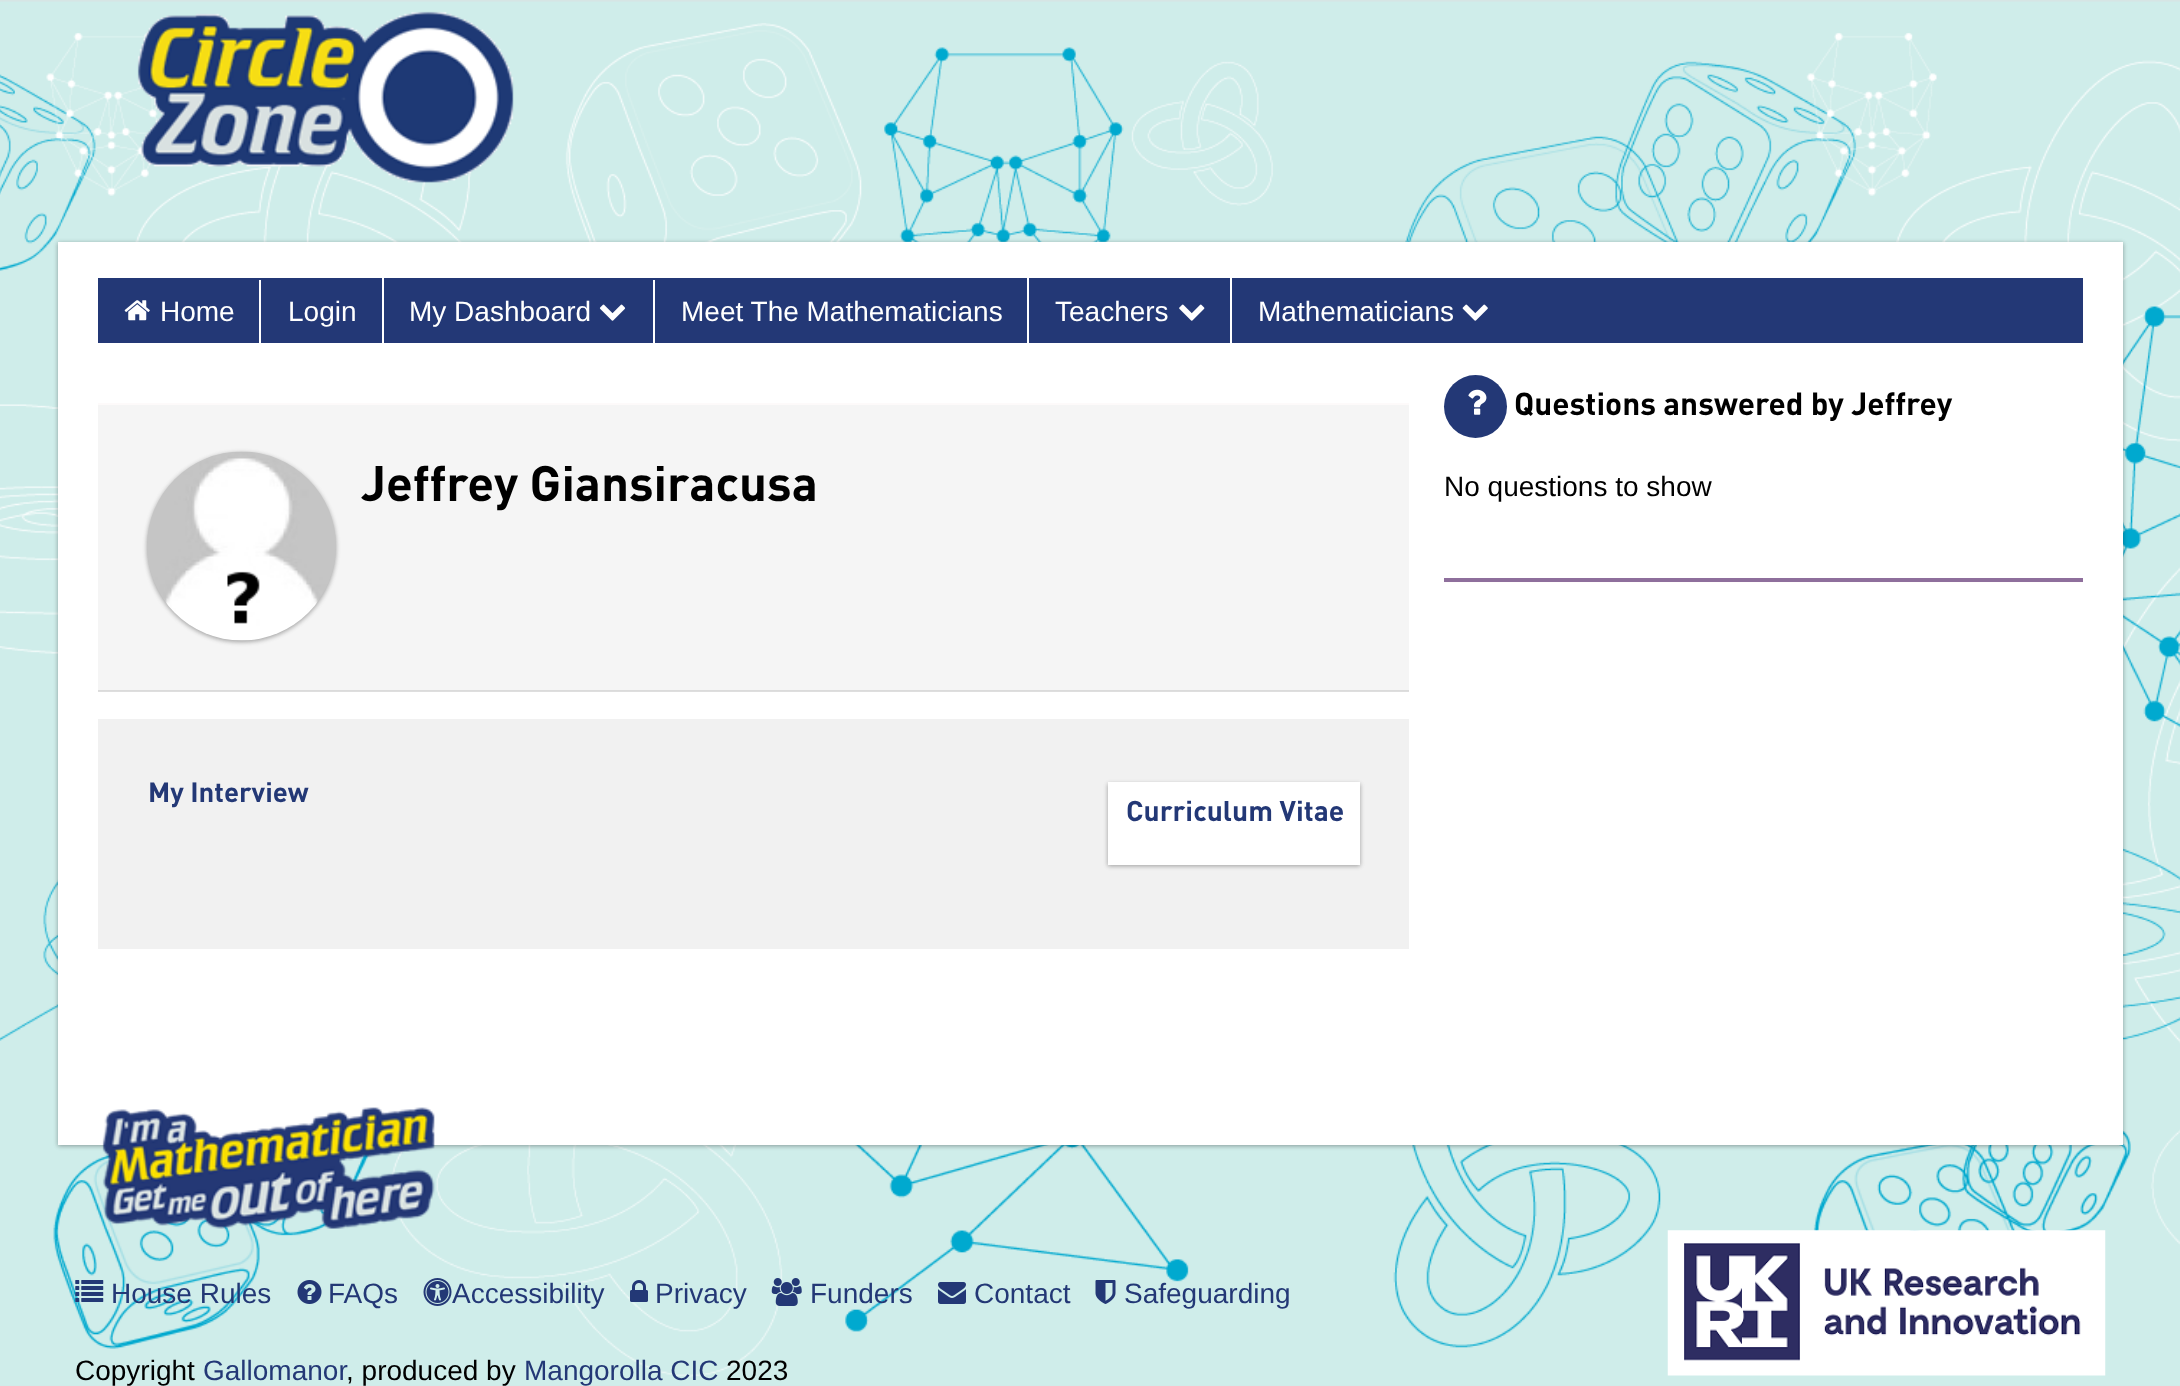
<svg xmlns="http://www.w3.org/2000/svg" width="2180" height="1386">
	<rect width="100%" height="100%" fill="#D9E0E1" />
	<image x="0" y="0" width="2180" height="1386" href="assets/img1.png" />
	<image x="137" y="11" width="377" height="172" href="assets/img2.png" />
	<rect x="58" y="243" width="2065" height="903" fill="#000000" fill-opacity="0.24" filter="blur(2px)" />
	<rect x="58" y="243" width="2065" height="903" fill="#000000" fill-opacity="0.12" filter="blur(2.5px)" />
	<rect x="58" y="242" width="2065" height="903" fill="#FFFFFF" />
	<rect x="98" y="278" width="1985" height="65" fill="#233876" />
	<image x="124" y="300" width="26" height="21" href="assets/img3.png" />
	<text x="160" y="321" font-family="Liberation Sans" font-size="28" fill="#FFFFFF">Home</text>
	<rect x="259" y="280" width="2" height="63" fill="#FFFFFF" />
	<text x="288" y="321" font-family="Liberation Sans" font-size="28" fill="#FFFFFF">Login</text>
	<rect x="382" y="278" width="2" height="65" fill="#FFFFFF" />
	<text x="409" y="321" font-family="Liberation Sans" font-size="28" fill="#FFFFFF">My Dashboard</text>
	<image x="599" y="304" width="27" height="17" href="assets/img4.png" />
	<rect x="653" y="280" width="2" height="63" fill="#FFFFFF" />
	<text x="681" y="321" font-family="Liberation Sans" font-size="28" fill="#FFFFFF">Meet The Mathematicians</text>
	<rect x="1027" y="278" width="2" height="65" fill="#FFFFFF" />
	<text x="1055" y="321" font-family="Liberation Sans" font-size="28" fill="#FFFFFF">Teachers</text>
	<image x="1179" y="304" width="26" height="17" href="assets/img5.png" />
	<rect x="1230" y="278" width="2" height="65" fill="#FFFFFF" />
	<text x="1258" y="321" font-family="Liberation Sans" font-size="28" fill="#FFFFFF">Mathematicians</text>
	<image x="1462" y="304" width="26" height="17" href="assets/img6.png" />
	<circle cx="1475.5" cy="406.5" r="31.5" fill="#233876" />
	<image x="1468" y="389" width="19" height="26" href="assets/img7.png" />
	<text x="1514" y="415" font-family="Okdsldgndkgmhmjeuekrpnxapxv" font-size="31.5" font-weight="700" fill="#000000">Questions answered by Jeffrey</text>
	<text x="1444" y="496" font-family="Liberation Sans" font-size="28" fill="#000000">No questions to show</text>
	<rect x="1444" y="582" width="639" height="1" fill="#FFFCFC" />
	<rect x="1444" y="578" width="639" height="4" fill="#8E6F9C" />
	<rect x="98" y="405" width="1311" height="286" fill="#F5F5F5" />
	<rect x="98" y="403" width="1311" height="2" fill="#FDFAFA" />
	<rect x="98" y="690" width="1311" height="2" fill="#CCCCCC" fill-opacity="0.64" />
	<rect x="147" y="453" width="189" height="189" rx="94.5" fill="#000000" fill-opacity="0.12" filter="blur(2.5px)" />
	<rect x="147" y="453" width="189" height="189" rx="94.5" fill="#000000" fill-opacity="0.24" filter="blur(2px)" />
	<image x="147" y="451" width="189" height="190" href="assets/img8.png" />
	<text x="361" y="501" font-family="Okdsldgndkgmhmjeuekrpnxapxv" font-size="49" font-weight="700" fill="#000000">Jeffrey Giansiracusa</text>
	<rect x="98" y="719" width="1311" height="230" fill="#F1F1F1" />
	<text x="148" y="802" font-family="Okdsldgndkgmhmjeuekrpnxapxv" font-size="27.5" font-weight="700" fill="#233876">My Interview</text>
	<rect x="1108" y="784" width="252" height="82" fill="#000000" fill-opacity="0.24" filter="blur(2px)" />
	<rect x="1108" y="784" width="252" height="82" fill="#000000" fill-opacity="0.12" filter="blur(2.5px)" />
	<rect x="1108" y="782" width="252" height="83" fill="#FFFFFF" />
	<text x="1126" y="821" font-family="Okdsldgndkgmhmjeuekrpnxapxv" font-size="28.25" font-weight="700" fill="#233876">Curriculum Vitae</text>
	<image x="102" y="1107" width="333" height="122" href="assets/img9.png" />
	<image x="75" y="1280" width="29" height="22" href="assets/img10.png" />
	<text x="111" y="1303" font-family="Liberation Sans" font-size="28" fill="#233876">House Rules</text>
	<image x="297" y="1280" width="25" height="24" href="assets/img11.png" />
	<text x="328" y="1303" font-family="Liberation Sans" font-size="28" fill="#233876">FAQs</text>
	<image x="423" y="1278" width="29" height="28" href="assets/img12.png" />
	<text x="452" y="1303" font-family="Liberation Sans" font-size="28" fill="#233876">Accessibility</text>
	<image x="630" y="1280" width="18" height="22" href="assets/img13.png" />
	<text x="655" y="1303" font-family="Liberation Sans" font-size="28" fill="#233876">Privacy</text>
	<image x="771" y="1278" width="31" height="28" href="assets/img14.png" />
	<text x="810" y="1303" font-family="Liberation Sans" font-size="28" fill="#233876">Funders</text>
	<image x="938" y="1282" width="28" height="22" href="assets/img15.png" />
	<text x="974" y="1303" font-family="Liberation Sans" font-size="28" fill="#233876">Contact</text>
	<image x="1095" y="1280" width="21" height="24" href="assets/img16.png" />
	<text x="1124" y="1303" font-family="Liberation Sans" font-size="28" fill="#233876">Safeguarding</text>
	<text x="75" y="1380" font-family="Liberation Sans" font-size="28" fill="#000000">Copyright</text>
	<text x="203" y="1380" font-family="Liberation Sans" font-size="28" fill="#233876">Gallomanor</text>
	<text x="346" y="1380" font-family="Liberation Sans" font-size="28" fill="#000000">, produced by</text>
	<text x="524" y="1380" font-family="Liberation Sans" font-size="28" fill="#233876">Mangorolla CIC</text>
	<text x="726" y="1380" font-family="Liberation Sans" font-size="28" fill="#000000">2023</text>
	<image x="1667" y="1230" width="439" height="146" href="assets/img17.png" />
</svg>
